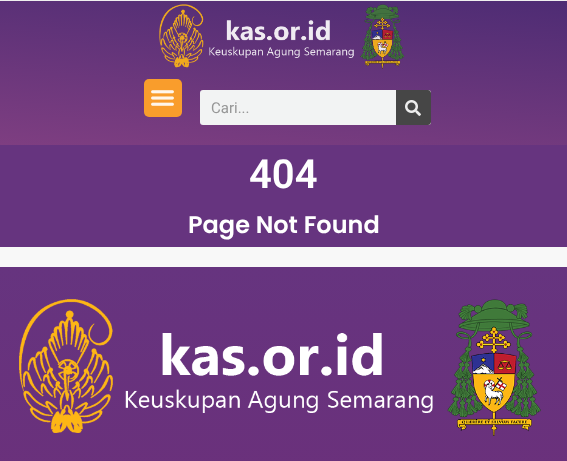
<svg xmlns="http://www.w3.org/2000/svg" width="567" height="461">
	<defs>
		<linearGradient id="g1" gradientUnits="userSpaceOnUse" x1="292" y1="-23" x2="275" y2="169"><stop offset="0" stop-color="#4E2C74" /><stop offset="1" stop-color="#7E3E81" /></linearGradient>
		<linearGradient id="g2" gradientUnits="userSpaceOnUse" x1="283" y1="267" x2="284" y2="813"><stop offset="0" stop-color="#66347F" /><stop offset="1" stop-color="#712B75" /></linearGradient>
	</defs>
	<rect width="100%" height="100%" fill="#F8F8F8" />
	<rect x="0" y="0" width="567" height="1" fill="#EFEFEF" />
	<rect x="0" y="1" width="567" height="144" fill="url(#g1)" />
	<image x="159" y="4" width="246" height="65" href="assets/img1.png" />
	<rect x="144" y="79" width="38" height="38" rx="5" fill="#F99D2C" />
	<image x="151" y="90" width="23" height="16" href="assets/img2.png" />
	<rect x="200" y="90" width="231" height="35" rx="3" fill="#F2F3F3" />
	<text x="211" y="113" font-family="Roboto" font-size="15" fill="#969696">Cari...</text>
	<path d="M396 90H428C429.5 90 431 91.5 431 93V122C431 123.5 429.5 125 428 125H396Z" fill="#464646" />
	<image x="405" y="100" width="16" height="16" href="assets/img3.png" />
	<rect x="0" y="145" width="567" height="102" fill="#66347F" />
	<text x="249" y="188" font-family="Roboto" font-size="40" font-weight="600" fill="#FFFFFF">404</text>
	<text x="188" y="233" font-family="Poppins" font-size="24" font-weight="600" fill="#FFFFFF">Page Not Found</text>
	<rect x="0" y="267" width="567" height="194" fill="url(#g2)" />
	<image x="19" y="299" width="522" height="137" href="assets/img4.png" />
</svg>
